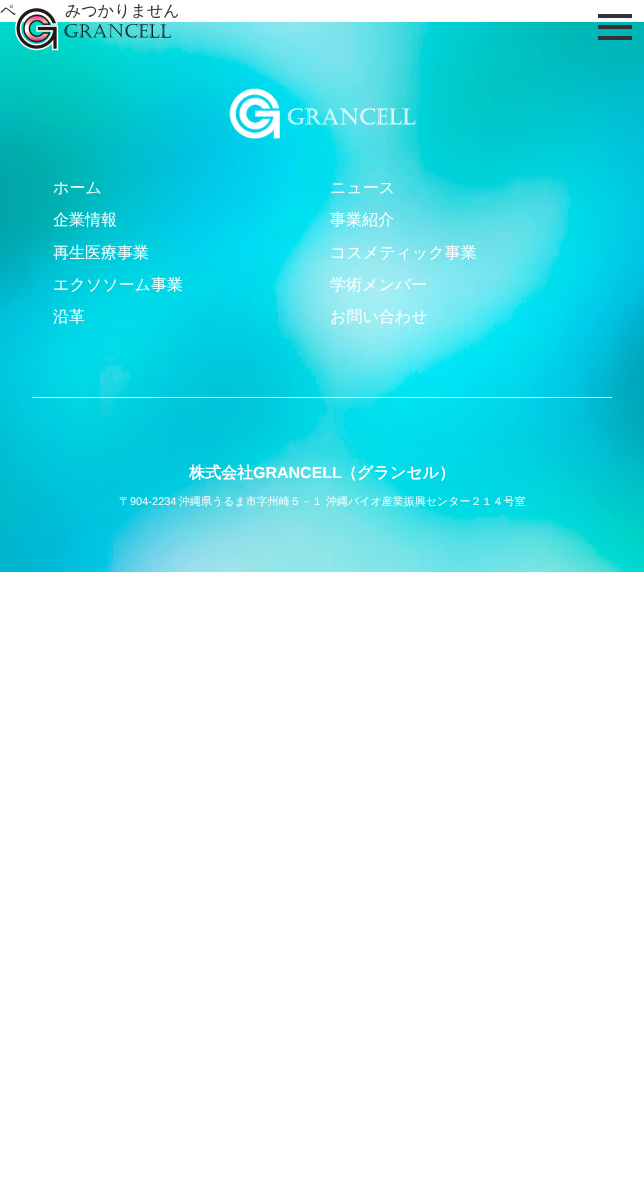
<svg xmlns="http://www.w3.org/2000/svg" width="644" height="1180">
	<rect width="100%" height="100%" fill="#FFFFFF" />
	<g font-family="WenQuanYi Zen Hei" font-size="16" font-weight="500" fill="#333333">
		<text x="0" y="16">ペ</text>
		<text x="65" y="16">みつかりません</text>
	</g>
	<image x="0" y="22" width="644" height="550" href="assets/img2.png" />
	<image x="15" y="6" width="156" height="45" href="assets/img1.png" />
	<rect x="598" y="14" width="34" height="4" fill="#333333" />
	<rect x="598" y="25" width="34" height="4" fill="#333333" />
	<rect x="598" y="36" width="34" height="4" fill="#333333" />
	<image x="229" y="88" width="187" height="51" href="assets/img3.png" />
	<rect x="32" y="397" width="580" height="1" fill="#FFFFFF" />
	<g font-family="WenQuanYi Zen Hei" font-size="16" font-weight="500" fill="#FFFFFF">
		<text x="53" y="193">ホーム</text>
		<text x="330" y="193">ニュース</text>
		<text x="53" y="225">企業情報</text>
		<text x="330" y="225">事業紹介</text>
		<text x="53" y="258">再生医療事業</text>
		<text x="330" y="258">コスメティック事業</text>
		<text x="53" y="290">エクソソーム事業</text>
		<text x="330" y="290">学術メンバー</text>
		<text x="53" y="322">沿革</text>
		<text x="330" y="322">お問い合わせ</text>
	</g>
	<text x="189" y="478" font-family="WenQuanYi Zen Hei" font-size="16" font-weight="700" fill="#FFFFFF">株式会社</text>
	<text x="253" y="478" font-family="Liberation Sans" font-size="16" font-weight="700" fill="#FFFFFF">GRANCELL</text>
	<text x="341" y="478" font-family="WenQuanYi Zen Hei" font-size="16" font-weight="700" fill="#FFFFFF">（グランセル）</text>
	<text x="119" y="505" font-family="WenQuanYi Zen Hei" font-size="11" font-weight="500" fill="#FFFFFF">〒</text>
	<text x="130" y="505" font-family="Liberation Sans" font-size="11" fill="#FFFFFF">904-2234</text>
	<text x="179" y="505" font-family="WenQuanYi Zen Hei" font-size="11" font-weight="500" fill="#FFFFFF">沖縄県うるま市字州崎５－１ 沖縄バイオ産業振興センター２１４号室</text>
</svg>
